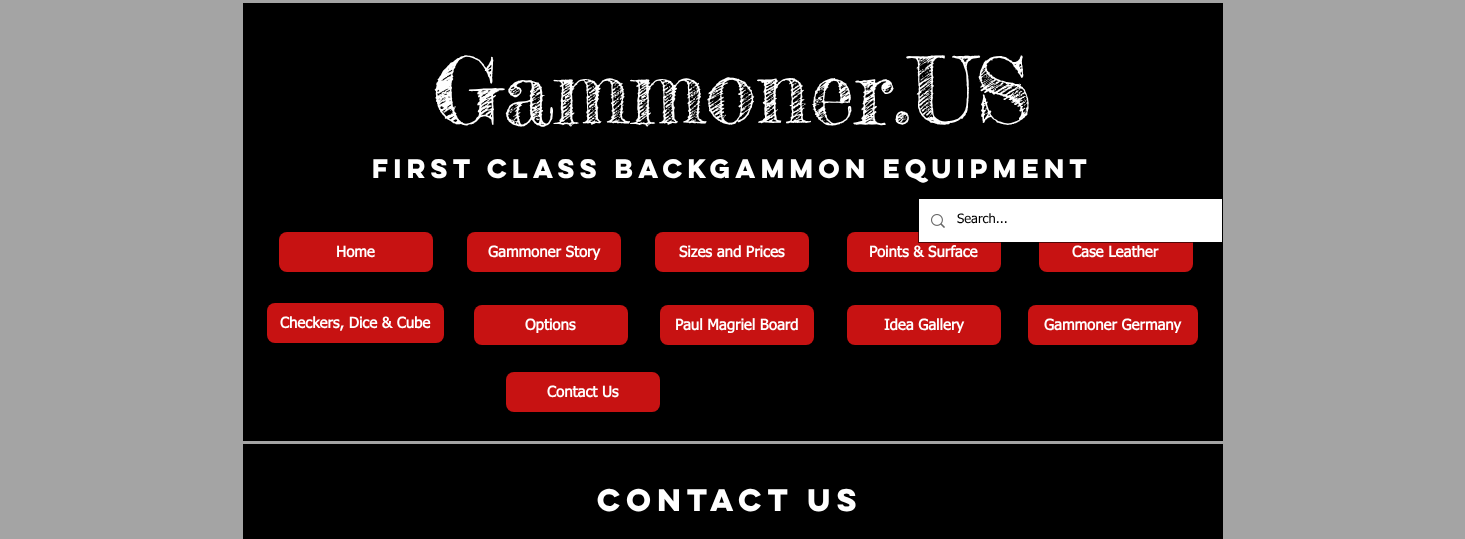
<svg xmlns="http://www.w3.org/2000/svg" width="1465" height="539">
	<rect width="100%" height="100%" fill="#A4A4A4" />
	<rect x="243" y="3" width="980" height="438" fill="#000000" />
	<text x="433" y="124" font-family="Fredericka the Great" font-size="91" fill="#FFFFFF">Gammoner.US</text>
	<text x="372" y="178" font-family="'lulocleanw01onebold'" font-size="24" font-weight="700" fill="#FFFFFF">First Class Backgammon Equipment</text>
	<rect x="847" y="232" width="154" height="40" rx="8" fill="#C71212" />
	<rect x="1039" y="232" width="154" height="40" rx="8" fill="#C71212" />
	<rect x="918.5" y="198.5" width="304" height="44" fill="none" stroke="#000000" stroke-opacity="0.6" />
	<rect x="919" y="199" width="303" height="43" fill="#FFFFFF" />
	<image x="931" y="214" width="14" height="14" href="assets/img1.png" />
	<text x="957" y="223" font-family="tahoma" font-size="13" fill="#000000">Search...</text>
	<rect x="279" y="232" width="154" height="40" rx="8" fill="#C71212" />
	<text x="336" y="257" font-family="tahoma" font-size="15" font-weight="700" fill="#FFFFFF">Home</text>
	<rect x="467" y="232" width="154" height="40" rx="8" fill="#C71212" />
	<text x="488" y="257" font-family="tahoma" font-size="15" font-weight="700" fill="#FFFFFF">Gammoner Story</text>
	<rect x="655" y="232" width="154" height="40" rx="8" fill="#C71212" />
	<g font-family="tahoma" font-size="15" font-weight="700" fill="#FFFFFF">
		<text x="679" y="257">Sizes and Prices</text>
		<text x="869" y="257">Points &amp; Surface</text>
		<text x="1072" y="257">Case Leather</text>
	</g>
	<rect x="267" y="303" width="177" height="40" rx="8" fill="#C71212" />
	<text x="280" y="328" font-family="tahoma" font-size="15" font-weight="700" fill="#FFFFFF">Checkers, Dice &amp; Cube</text>
	<rect x="474" y="305" width="154" height="40" rx="8" fill="#C71212" />
	<text x="525" y="330" font-family="tahoma" font-size="15" font-weight="700" fill="#FFFFFF">Options</text>
	<rect x="660" y="305" width="154" height="40" rx="8" fill="#C71212" />
	<text x="675" y="330" font-family="tahoma" font-size="15" font-weight="700" fill="#FFFFFF">Paul Magriel Board</text>
	<rect x="847" y="305" width="154" height="40" rx="8" fill="#C71212" />
	<text x="884" y="330" font-family="tahoma" font-size="15" font-weight="700" fill="#FFFFFF">Idea Gallery</text>
	<rect x="1028" y="305" width="170" height="40" rx="8" fill="#C71212" />
	<text x="1044" y="330" font-family="tahoma" font-size="15" font-weight="700" fill="#FFFFFF">Gammoner Germany</text>
	<rect x="506" y="372" width="154" height="40" rx="8" fill="#C71212" />
	<text x="547" y="397" font-family="tahoma" font-size="15" font-weight="700" fill="#FFFFFF">Contact Us</text>
	<rect x="243" y="444" width="980" height="95" fill="#000000" />
	<text x="597" y="511" font-family="'lulocleanw01onebold'" font-size="28" font-weight="700" fill="#FFFFFF">CONTACT US</text>
</svg>
